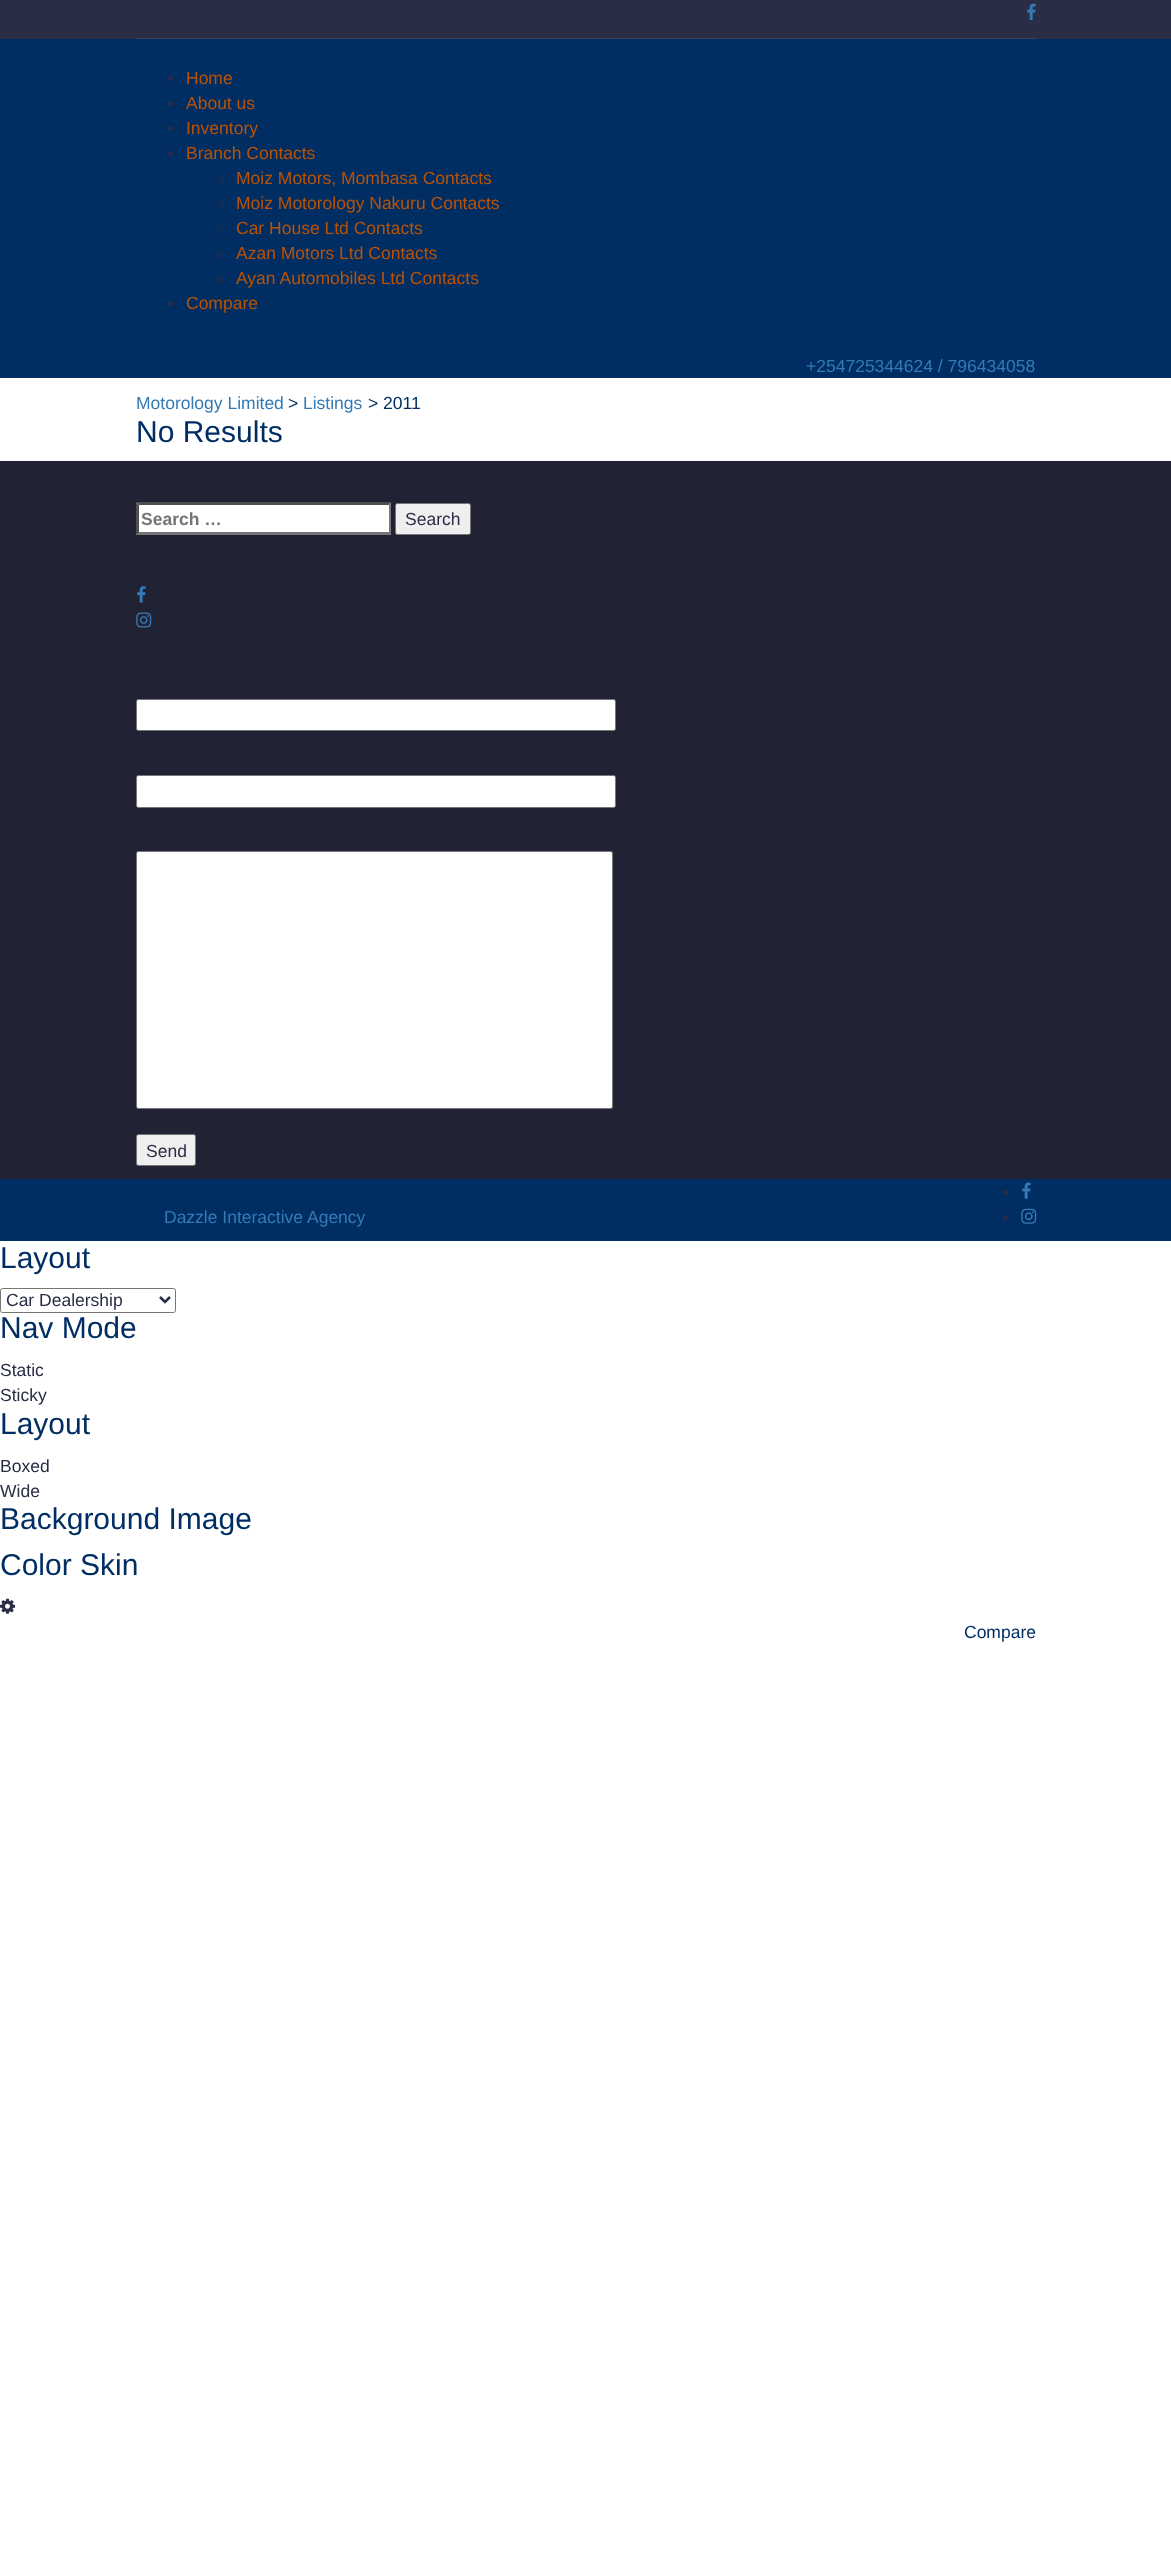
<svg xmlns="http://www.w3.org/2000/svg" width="1171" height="2568">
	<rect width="100%" height="100%" fill="#FFFFFF" />
	<rect x="0" y="0" width="1171" height="39" fill="#292D45" />
	<rect x="136" y="38" width="900" height="1" fill="#3E4258" />
	<image x="1027" y="3" width="9" height="17" href="assets/img1.png" />
	<rect x="0" y="39" width="1171" height="339" fill="#002E63" />
	<circle cx="170.5" cy="78.5" r="2.5" fill="#292D45" />
	<text x="186" y="84" font-family="Liberation Sans" font-size="17.5" fill="#BA5205">Home</text>
	<circle cx="170.5" cy="103.5" r="2.5" fill="#292D45" />
	<text x="186" y="109" font-family="Liberation Sans" font-size="17.5" fill="#BA5205">About us</text>
	<circle cx="170.5" cy="128.5" r="2.5" fill="#292D45" />
	<text x="186" y="134" font-family="Liberation Sans" font-size="17.5" fill="#BA5205">Inventory</text>
	<circle cx="170.5" cy="153.5" r="2.5" fill="#292D45" />
	<text x="186" y="159" font-family="Liberation Sans" font-size="17.5" fill="#BA5205">Branch Contacts</text>
	<rect x="218.5" y="176.5" width="5" height="6" rx="2.5" fill="none" stroke="#292D45" />
	<text x="236" y="184" font-family="Liberation Sans" font-size="17.5" fill="#BA5205">Moiz Motors, Mombasa Contacts</text>
	<rect x="218.5" y="201.5" width="5" height="6" rx="2.5" fill="none" stroke="#292D45" />
	<text x="236" y="209" font-family="Liberation Sans" font-size="17.5" fill="#BA5205">Moiz Motorology Nakuru Contacts</text>
	<rect x="218.5" y="226.5" width="5" height="6" rx="2.5" fill="none" stroke="#292D45" />
	<text x="236" y="234" font-family="Liberation Sans" font-size="17.5" fill="#BA5205">Car House Ltd Contacts</text>
	<rect x="218.5" y="251.5" width="5" height="6" rx="2.5" fill="none" stroke="#292D45" />
	<text x="236" y="259" font-family="Liberation Sans" font-size="17.5" fill="#BA5205">Azan Motors Ltd Contacts</text>
	<rect x="218.5" y="276.5" width="5" height="6" rx="2.5" fill="none" stroke="#292D45" />
	<text x="236" y="284" font-family="Liberation Sans" font-size="17.5" fill="#BA5205">Ayan Automobiles Ltd Contacts</text>
	<circle cx="170.5" cy="303.5" r="2.5" fill="#292D45" />
	<text x="186" y="309" font-family="Liberation Sans" font-size="17.5" fill="#BA5205">Compare</text>
	<g font-family="Liberation Sans" font-size="17.5" fill="#337AB7">
		<text x="806" y="372">+254725344624 / 796434058</text>
		<text x="136" y="409">Motorology Limited</text>
	</g>
	<text x="288" y="409" font-family="Liberation Sans" font-size="17.5" fill="#002E63">&gt;</text>
	<text x="303" y="409" font-family="Liberation Sans" font-size="17.5" fill="#337AB7">Listings</text>
	<text x="368" y="409" font-family="Liberation Sans" font-size="17.5" fill="#002E63">&gt; 2011</text>
	<text x="136" y="442" font-family="Liberation Sans" font-size="30" fill="#002E63">No Results</text>
	<rect x="0" y="461" width="1171" height="718" fill="#212335" />
	<rect x="136" y="503" width="255" height="32" fill="#FFFFFF" />
	<path d="M136 502H391L389 505H139Z" fill="#4F4F4F" />
	<path d="M391 502.5V535L389 532.5V505Z" fill="#767676" />
	<path d="M391 535H136L139 532H389Z" fill="#767676" />
	<path d="M136 535V502.5L139 505V532.5Z" fill="#4F4F4F" />
	<text x="141" y="525" font-family="Liberation Sans" font-size="17.5" font-weight="700" fill="#757575">Search …</text>
	<rect x="395.5" y="503.5" width="75" height="31" rx="2" fill="#EFEFEF" stroke="#767676" />
	<text x="405" y="525" font-family="Liberation Sans" font-size="17.5" fill="#292D45">Search</text>
	<image x="137" y="586" width="9" height="17" href="assets/img2.png" />
	<image x="136" y="612" width="16" height="16" href="assets/img3.png" />
	<rect x="136.5" y="699.5" width="479" height="31" rx="2" fill="#FFFFFF" stroke="#767676" />
	<rect x="136.5" y="775.5" width="479" height="32" rx="2" fill="#FFFFFF" stroke="#767676" />
	<rect x="136.5" y="851.5" width="476" height="257" rx="2" fill="#FFFFFF" stroke="#767676" />
	<rect x="136.5" y="1134.5" width="59" height="31" rx="2" fill="#EFEFEF" stroke="#767676" />
	<text x="146" y="1157" font-family="Liberation Sans" font-size="17.5" fill="#292D45">Send</text>
	<rect x="0" y="1179" width="1171" height="62" fill="#002E63" />
	<text x="164" y="1223" font-family="Liberation Sans" font-size="17.5" fill="#337AB7">Dazzle Interactive Agency</text>
	<circle cx="1005.5" cy="1192.5" r="2.5" fill="#292D45" />
	<image x="1022" y="1182" width="9" height="17" href="assets/img4.png" />
	<circle cx="1005.5" cy="1217.5" r="2.5" fill="#292D45" />
	<image x="1021" y="1208" width="16" height="16" href="assets/img5.png" />
	<text x="0" y="1268" font-family="Liberation Sans" font-size="30" fill="#002E63">Layout</text>
	<rect x="0.5" y="1288.5" width="175" height="24" rx="2" fill="none" stroke="#767676" />
	<path d="M160 1297L165 1302L170 1297" fill="none" stroke="#292D45" stroke-width="2.5" />
	<text x="6" y="1306" font-family="Liberation Sans" font-size="17.5" fill="#292D45">Car Dealership</text>
	<text x="0" y="1338" font-family="Liberation Sans" font-size="30" fill="#002E63">Nav Mode</text>
	<g font-family="Liberation Sans" font-size="17.5" fill="#292D45">
		<text x="0" y="1376">Static</text>
		<text x="0" y="1401">Sticky</text>
	</g>
	<text x="0" y="1434" font-family="Liberation Sans" font-size="30" fill="#002E63">Layout</text>
	<g font-family="Liberation Sans" font-size="17.5" fill="#292D45">
		<text x="0" y="1472">Boxed</text>
		<text x="0" y="1497">Wide</text>
	</g>
	<g font-family="Liberation Sans" font-size="30" fill="#002E63">
		<text x="0" y="1529">Background Image</text>
		<text x="0" y="1575">Color Skin</text>
	</g>
	<image x="0" y="1598" width="15" height="16" href="assets/img6.png" />
	<text x="964" y="1638" font-family="Liberation Sans" font-size="17.5" fill="#002E63">Compare</text>
</svg>
